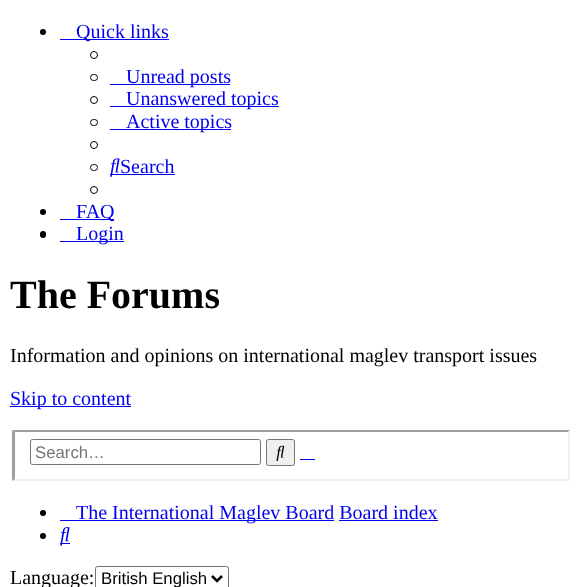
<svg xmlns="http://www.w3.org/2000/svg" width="582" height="587">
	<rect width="100%" height="100%" fill="#FFFFFF" />
	<circle cx="43" cy="32" r="3" fill="#000000" />
	<rect x="60" y="39" width="109" height="1" fill="#0000EE" />
	<text x="76" y="38" font-family="Liberation Serif" font-size="20" fill="#0000EE">Quick links</text>
	<circle cx="94" cy="55" r="3.5" fill="none" stroke="#000000" />
	<rect x="90.5" y="74.5" width="7" height="6" rx="3" fill="none" stroke="#000000" />
	<rect x="110" y="84" width="120" height="1" fill="#0000EE" />
	<text x="126" y="83" font-family="Liberation Serif" font-size="20" fill="#0000EE">Unread posts</text>
	<circle cx="94" cy="100" r="3.5" fill="none" stroke="#000000" />
	<rect x="110" y="106" width="169" height="1" fill="#0000EE" />
	<text x="126" y="105" font-family="Liberation Serif" font-size="20" fill="#0000EE">Unanswered topics</text>
	<rect x="90.5" y="119.5" width="7" height="6" rx="3" fill="none" stroke="#000000" />
	<rect x="110" y="129" width="121" height="1" fill="#0000EE" />
	<text x="126" y="128" font-family="Liberation Serif" font-size="20" fill="#0000EE">Active topics</text>
	<circle cx="94" cy="145" r="3.5" fill="none" stroke="#000000" />
	<rect x="90.5" y="164.5" width="7" height="6" rx="3" fill="none" stroke="#000000" />
	<rect x="110" y="174" width="65" height="1" fill="#0000EE" />
	<image x="110" y="158" width="10" height="19" href="assets/img1.png" />
	<text x="120" y="173" font-family="Liberation Serif" font-size="20" fill="#0000EE">Search</text>
	<circle cx="94" cy="190" r="3.5" fill="none" stroke="#000000" />
	<circle cx="43" cy="212" r="3" fill="#000000" />
	<rect x="60" y="219" width="54" height="1" fill="#0000EE" />
	<text x="76" y="218" font-family="Liberation Serif" font-size="20" fill="#0000EE">FAQ</text>
	<rect x="40" y="231" width="6" height="7" rx="3" fill="#000000" />
	<rect x="60" y="241" width="64" height="1" fill="#0000EE" />
	<text x="76" y="240" font-family="Liberation Serif" font-size="20" fill="#0000EE">Login</text>
	<text x="10" y="308" font-family="Liberation Serif" font-size="40" font-weight="700" fill="#000000">The Forums</text>
	<text x="10" y="362" font-family="Liberation Serif" font-size="20" fill="#000000">Information and opinions on international maglev transport issues</text>
	<rect x="10" y="406" width="121" height="1" fill="#0000EE" />
	<text x="10" y="405" font-family="Liberation Serif" font-size="20" fill="#0000EE">Skip to content</text>
	<path d="M12 430H570L568 432H15Z" fill="#9F9F9F" />
	<path d="M570 430V481L568 479V432Z" fill="#EFEFEF" />
	<path d="M570 481H12L15 479H568Z" fill="#EFEFEF" />
	<path d="M12 481V430L15 432V479Z" fill="#9F9F9F" />
	<rect x="30.5" y="439.5" width="230" height="25" rx="2" fill="none" stroke="#767676" />
	<text x="35" y="458" font-family="Liberation Sans" font-size="16.75" fill="#757575">Search…</text>
	<rect x="266.5" y="439.5" width="28" height="26" rx="2" fill="#EFEFEF" stroke="#767676" />
	<image x="276" y="445" width="9" height="17" href="assets/img2.png" />
	<rect x="300" y="459" width="15" height="1" fill="#0000EE" />
	<circle cx="43" cy="513" r="3" fill="#000000" />
	<rect x="60" y="520" width="274" height="1" fill="#0000EE" />
	<text x="76" y="519" font-family="Liberation Serif" font-size="20" fill="#0000EE">The International Maglev Board Board index</text>
	<rect x="339" y="520" width="99" height="1" fill="#0000EE" />
	<circle cx="43" cy="536" r="3" fill="#000000" />
	<rect x="60" y="543" width="10" height="1" fill="#0000EE" />
	<image x="60" y="527" width="10" height="19" href="assets/img3.png" />
	<text x="10" y="584" font-family="Liberation Serif" font-size="20" fill="#000000">Language:</text>
	<rect x="95.5" y="566.5" width="133" height="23" rx="2" fill="none" stroke="#767676" />
	<path d="M212 576L217 581L222 576" fill="none" stroke="#000000" stroke-width="2.5" />
	<text x="101" y="584" font-family="Liberation Sans" font-size="16.75" fill="#000000">British English</text>
</svg>
